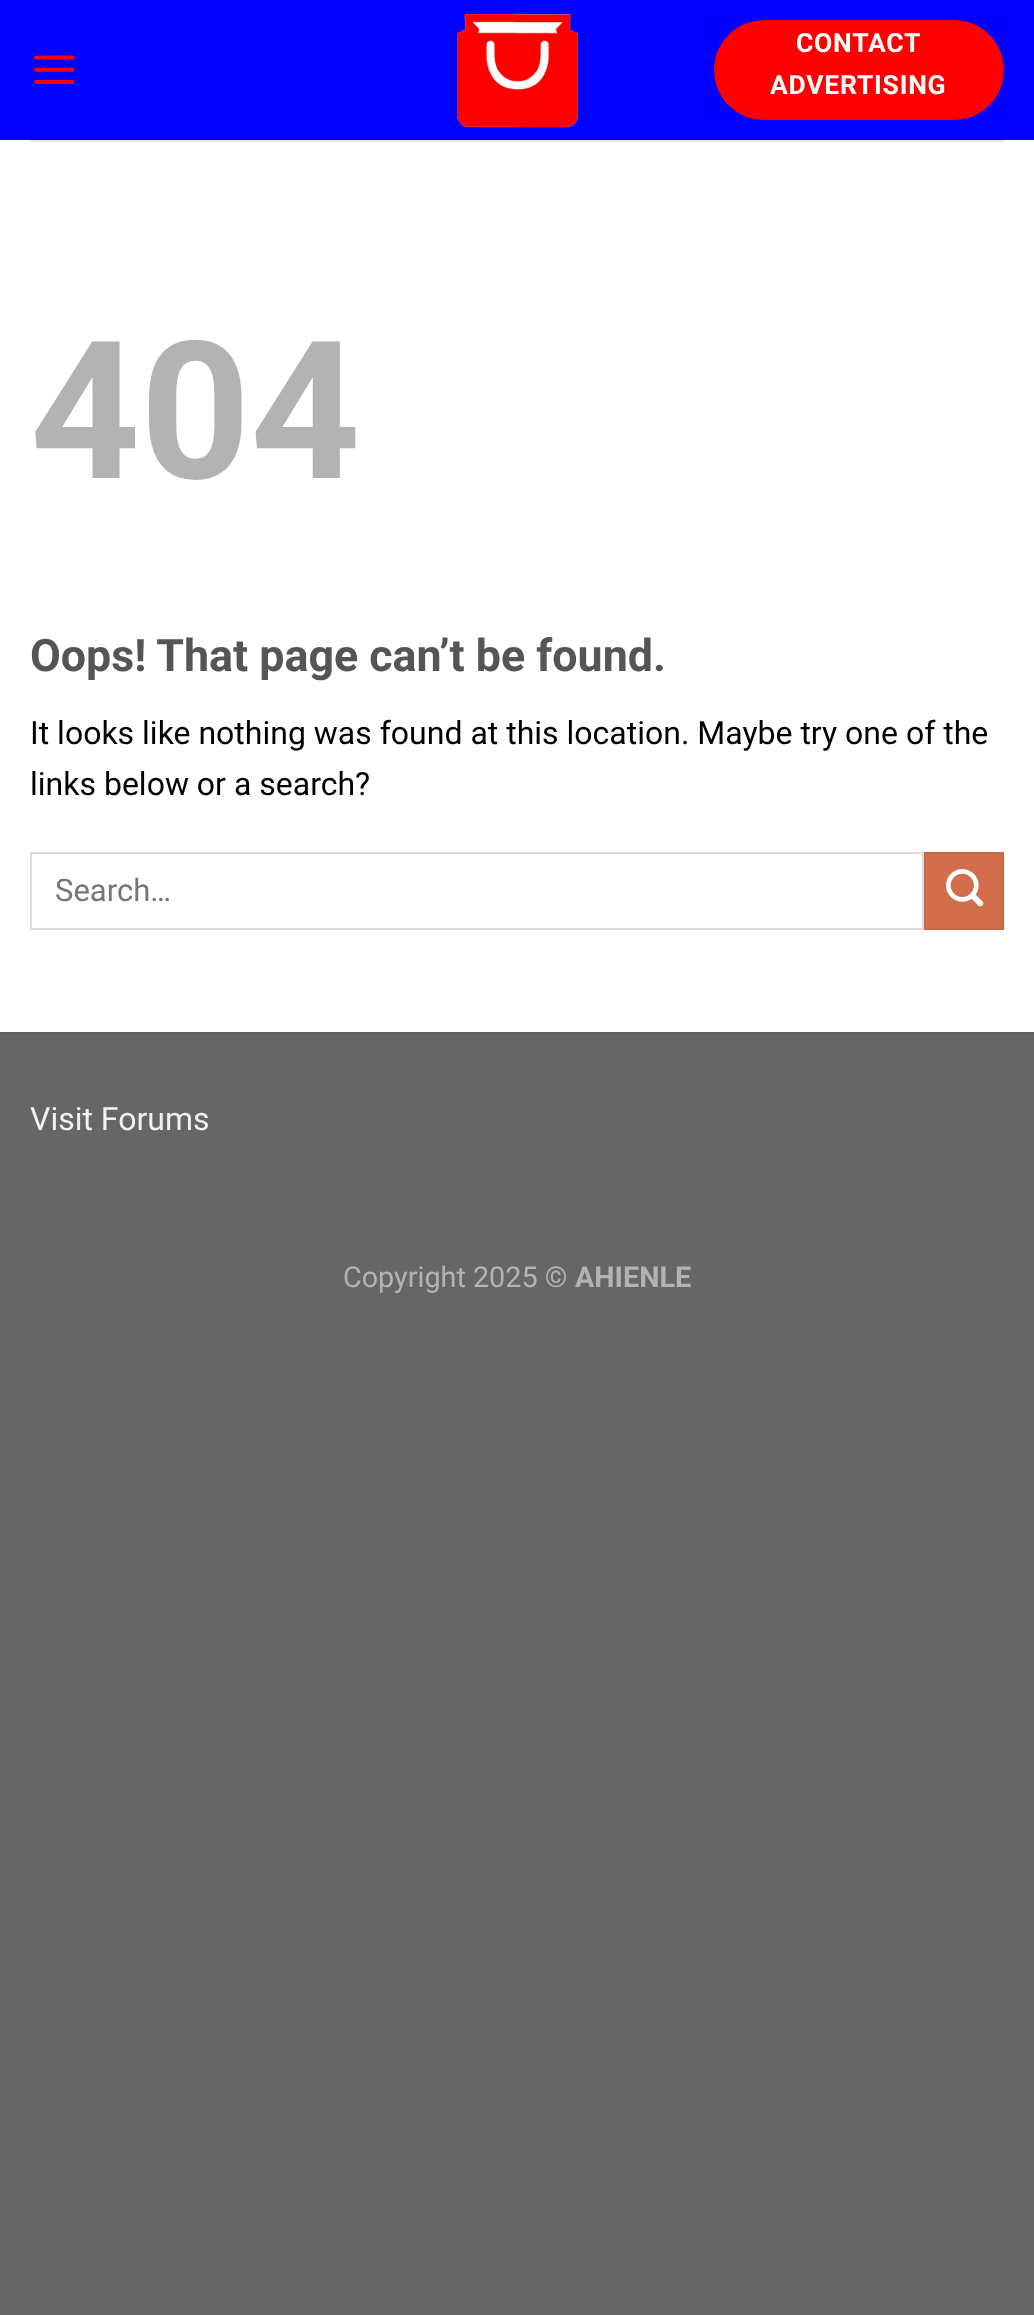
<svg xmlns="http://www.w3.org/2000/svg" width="1034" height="2315">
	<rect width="100%" height="100%" fill="#666666" />
	<rect x="0" y="140" width="1034" height="892" fill="#FFFFFF" />
	<rect x="0" y="0" width="1034" height="140" fill="#0000FF" />
	<image x="34" y="55" width="41" height="29" href="assets/img1.png" />
	<image x="457" y="13" width="121" height="115" href="assets/img2.png" />
	<rect x="714" y="20" width="290" height="100" rx="50" fill="#FF0000" />
	<rect x="715" y="21" width="288" height="98" fill="none" stroke="#000000" stroke-opacity="0.05" stroke-width="2" />
	<g font-family="Roboto" font-size="26.5" font-weight="700" letter-spacing="0.75" fill="#FFFFFF">
		<text x="796" y="52">CONTACT</text>
		<text x="770" y="94">ADVERTISING</text>
	</g>
	<rect x="30" y="140" width="974" height="2" fill="#E6E6E6" />
	<text x="30" y="478" font-family="Roboto" font-size="192" font-weight="700" fill="#B3B3B3">404</text>
	<text x="30" y="671" font-family="Roboto" font-size="44.75" font-weight="700" fill="#555555">Oops! That page can’t be found.</text>
	<g font-family="Roboto" font-size="32" fill="#000000">
		<text x="30" y="744">It looks like nothing was found at this location. Maybe try one of the</text>
		<text x="30" y="795">links below or a search?</text>
	</g>
	<rect x="31" y="853" width="892" height="76" fill="none" stroke="#DDDDDD" stroke-width="2" />
	<text x="55" y="901" font-family="Roboto" font-size="31" fill="#757575">Search…</text>
	<rect x="925" y="853" width="78" height="76" fill="#D26E4B" stroke="#C86947" stroke-width="2" />
	<image x="946" y="869" width="38" height="38" href="assets/img3.png" />
	<rect x="0" y="1032" width="1034" height="2" fill="#616161" />
	<text x="30" y="1130" font-family="Roboto" font-size="32" fill="#F1F1F1">Visit Forums</text>
	<text x="343" y="1287" font-family="Roboto" font-size="28.75" fill="#B3B3B3">Copyright 2025 ©</text>
	<text x="575" y="1287" font-family="Roboto" font-size="28.75" font-weight="700" fill="#B3B3B3">AHIENLE</text>
</svg>
